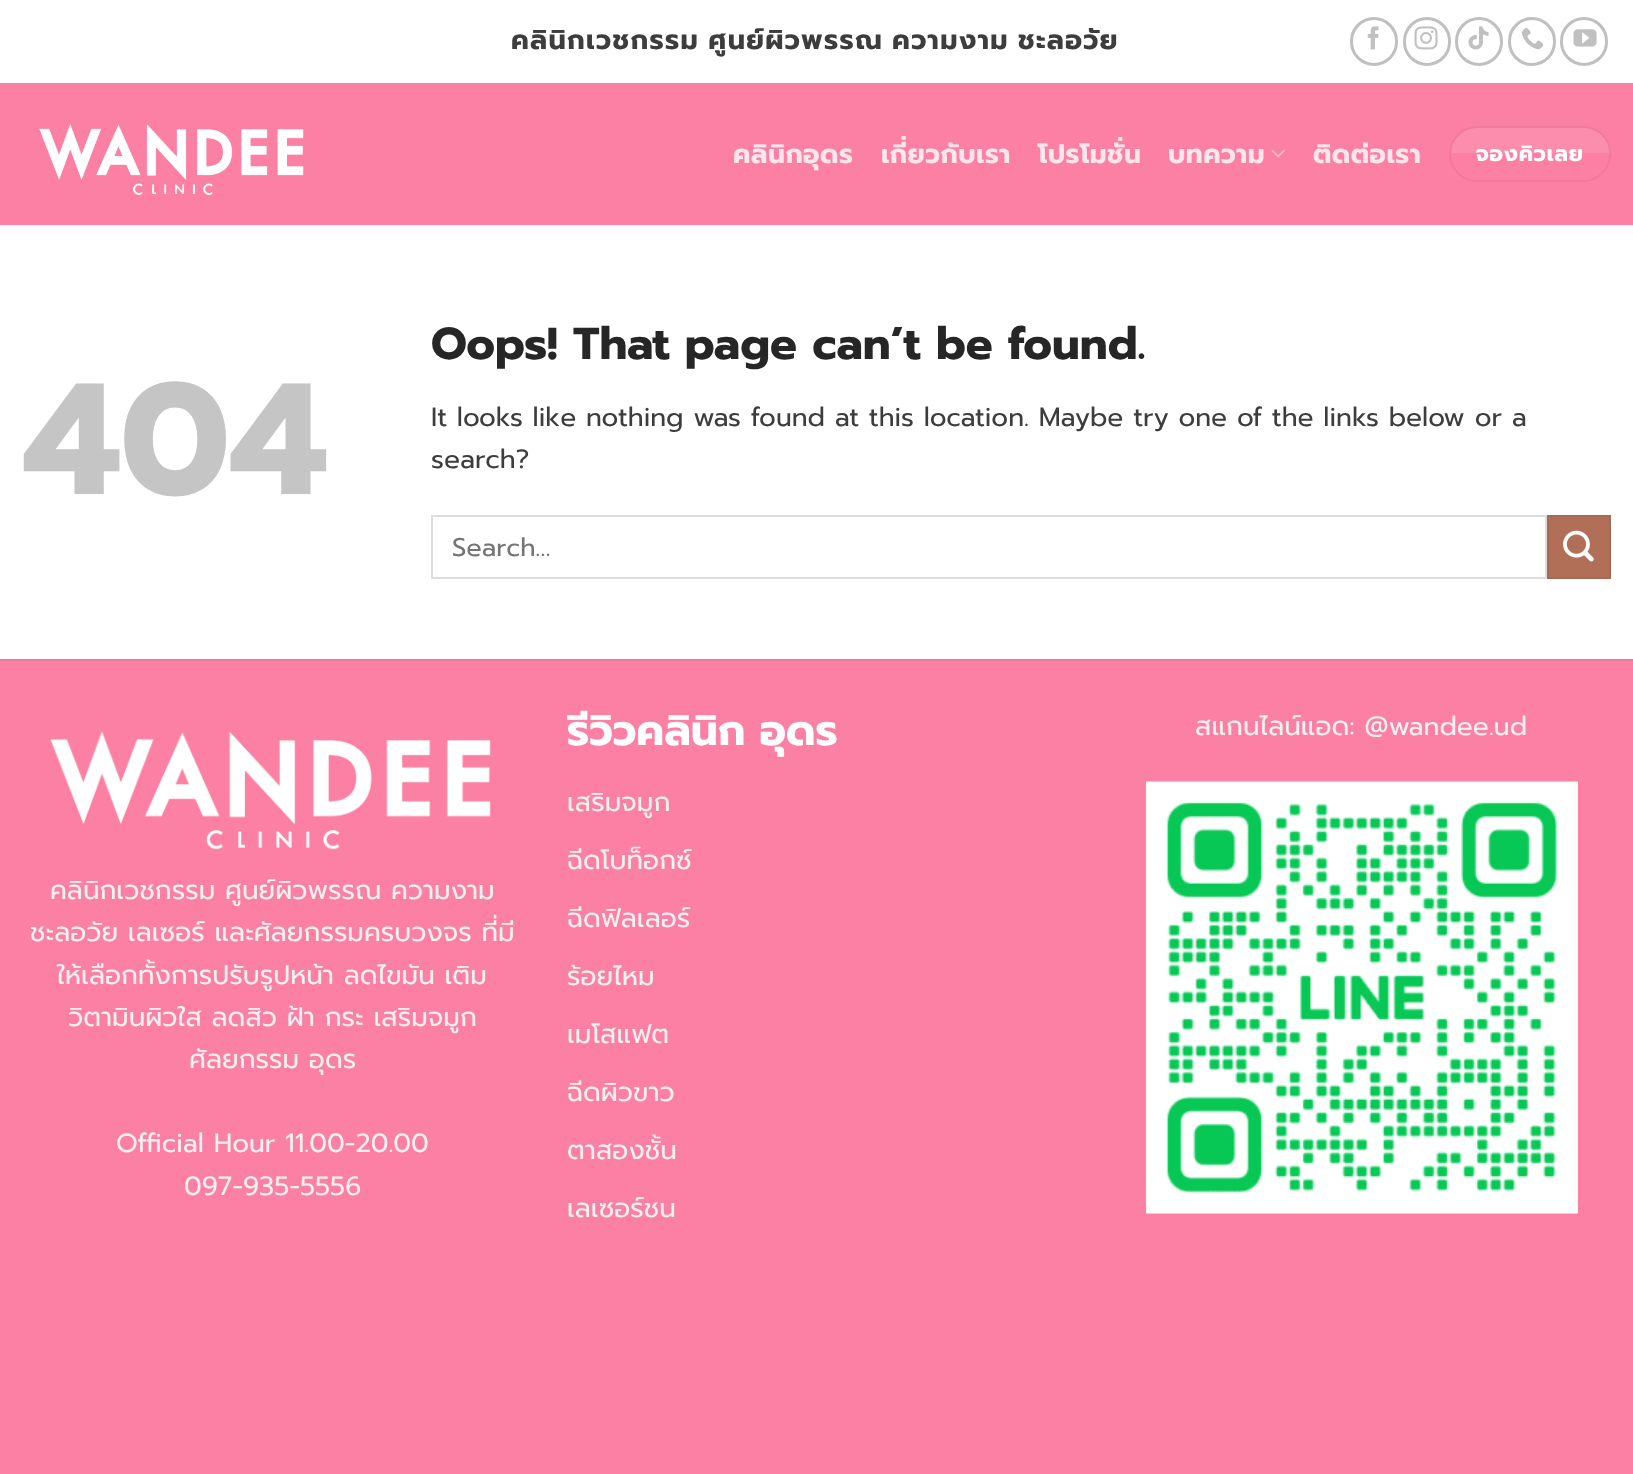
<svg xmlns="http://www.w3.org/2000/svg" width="1633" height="1474">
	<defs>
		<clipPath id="clip1"><rect x="1451" y="128" width="159" height="52" rx="26" /></clipPath>
	</defs>
	<rect width="100%" height="100%" fill="#FC80A3" />
	<rect x="0" y="225" width="1633" height="434" fill="#FFFFFF" />
	<rect x="0" y="0" width="1633" height="83" fill="#FFFFFF" />
	<text x="511" y="49" word-spacing="-1.5" font-family="Prompt" font-size="27" font-weight="700" letter-spacing="1.35" fill="#3D3D3D">คลินิกเวชกรรม ศูนย์ผิวพรรณ ความงาม ชะลอวัย</text>
	<rect x="1351.5" y="18.5" width="45" height="46" rx="22.5" fill="none" stroke="#C0C0C0" stroke-width="3" />
	<image x="1367" y="26" width="12" height="24" href="assets/img1.png" />
	<rect x="1404.5" y="18.5" width="45" height="46" rx="22.5" fill="none" stroke="#C0C0C0" stroke-width="3" />
	<image x="1414" y="26" width="24" height="24" href="assets/img2.png" />
	<rect x="1456.5" y="18.5" width="45" height="46" rx="22.5" fill="none" stroke="#C0C0C0" stroke-width="3" />
	<image x="1468" y="26" width="21" height="24" href="assets/img3.png" />
	<rect x="1509.5" y="18.5" width="45" height="46" rx="22.5" fill="none" stroke="#C0C0C0" stroke-width="3" />
	<image x="1521" y="28" width="23" height="22" href="assets/img4.png" />
	<rect x="1561.5" y="18.5" width="45" height="46" rx="22.5" fill="none" stroke="#C0C0C0" stroke-width="3" />
	<image x="1573" y="29" width="24" height="18" href="assets/img5.png" />
	<image x="39" y="124" width="265" height="72" href="assets/img6.png" />
	<g font-family="Prompt" font-size="26.4" font-weight="700" letter-spacing="0.5" fill="#FEE6ED">
		<text x="733" y="163">คลินิกอุดร</text>
		<text x="881" y="163">เกี่ยวกับเรา</text>
		<text x="1038" y="163">โปรโมชั่น</text>
		<text x="1168" y="163">บทความ</text>
	</g>
	<image x="1271" y="149" width="14" height="9" href="assets/img7.png" />
	<text x="1313" y="163" font-family="Prompt" font-size="26.4" font-weight="700" letter-spacing="0.5" fill="#FEE6ED">ติดต่อเรา</text>
	<rect x="1450" y="127" width="160" height="54" rx="27" fill="none" stroke="#EF7A9B" stroke-width="2" />
	<g clip-path="url(#clip1)">
		<rect x="1451" y="128" width="159" height="25" fill="#FFFFFF" fill-opacity="0.1" />
	</g>
	<text x="1476" y="161" font-family="Prompt" font-size="21.75" font-weight="700" letter-spacing="0.75" fill="#FFFFFF">จองคิวเลย</text>
	<text x="23" y="494" font-family="Prompt" font-size="158" font-weight="700" fill="#C5C5C5">404</text>
	<text x="431" y="359" font-family="Prompt" font-size="44.9" font-weight="700" fill="#262626">Oops! That page can’t be found.</text>
	<g font-family="Prompt" font-size="26.4" fill="#3D3D3D">
		<text x="431" y="426">It looks like nothing was found at this location. Maybe try one of the links below or a</text>
		<text x="431" y="468">search?</text>
	</g>
	<rect x="432" y="516" width="1114" height="62" fill="none" stroke="#DDDDDD" stroke-width="2" />
	<text x="452" y="556" font-family="Prompt" font-size="25.5" fill="#757575">Search…</text>
	<rect x="1548" y="516" width="62" height="62" fill="#B16F57" stroke="#A86953" stroke-width="2" />
	<image x="1563" y="530" width="31" height="32" href="assets/img8.png" />
	<rect x="0" y="659" width="1633" height="2" fill="#EF7A9B" />
	<text x="567" y="745" font-family="Prompt" font-size="42.25" font-weight="700" fill="#FFFFFF">รีวิวคลินิก อุดร</text>
	<g font-family="Prompt" font-size="26.4" fill="#F1F1F1">
		<text x="567" y="811">เสริมจมูก</text>
		<text x="567" y="869">ฉีดโบท็อกซ์</text>
		<text x="567" y="927">ฉีดฟิลเลอร์</text>
		<text x="567" y="985">ร้อยไหม</text>
		<text x="567" y="1043">เมโสแฟต</text>
		<text x="567" y="1101">ฉีดผิวขาว</text>
		<text x="567" y="1159">ตาสองชั้น</text>
		<text x="567" y="1217">เลเซอร์ชน</text>
		<text x="1195" y="735">สแกนไลน์แอด: @wandee.ud</text>
	</g>
	<image x="1146" y="781" width="432" height="433" href="assets/img9.png" />
	<image x="50" y="731" width="441" height="119" href="assets/img10.png" />
	<g font-family="Prompt" font-size="26.4" fill="#F1F1F1">
		<text x="50" y="899">คลินิกเวชกรรม ศูนย์ผิวพรรณ ความงาม</text>
		<text x="30" y="941">ชะลอวัย เลเซอร์ และศัลยกรรมครบวงจร ที่มี</text>
		<text x="57" y="984">ให้เลือกทั้งการปรับรูปหน้า ลดไขมัน เติม</text>
		<text x="68" y="1026">วิตามินผิวใส ลดสิว ฝ้า กระ เสริมจมูก</text>
		<text x="189" y="1068">ศัลยกรรม อุดร</text>
		<text x="116" y="1152">Official Hour 11.00-20.00</text>
		<text x="184" y="1195">097-935-5556</text>
	</g>
</svg>
